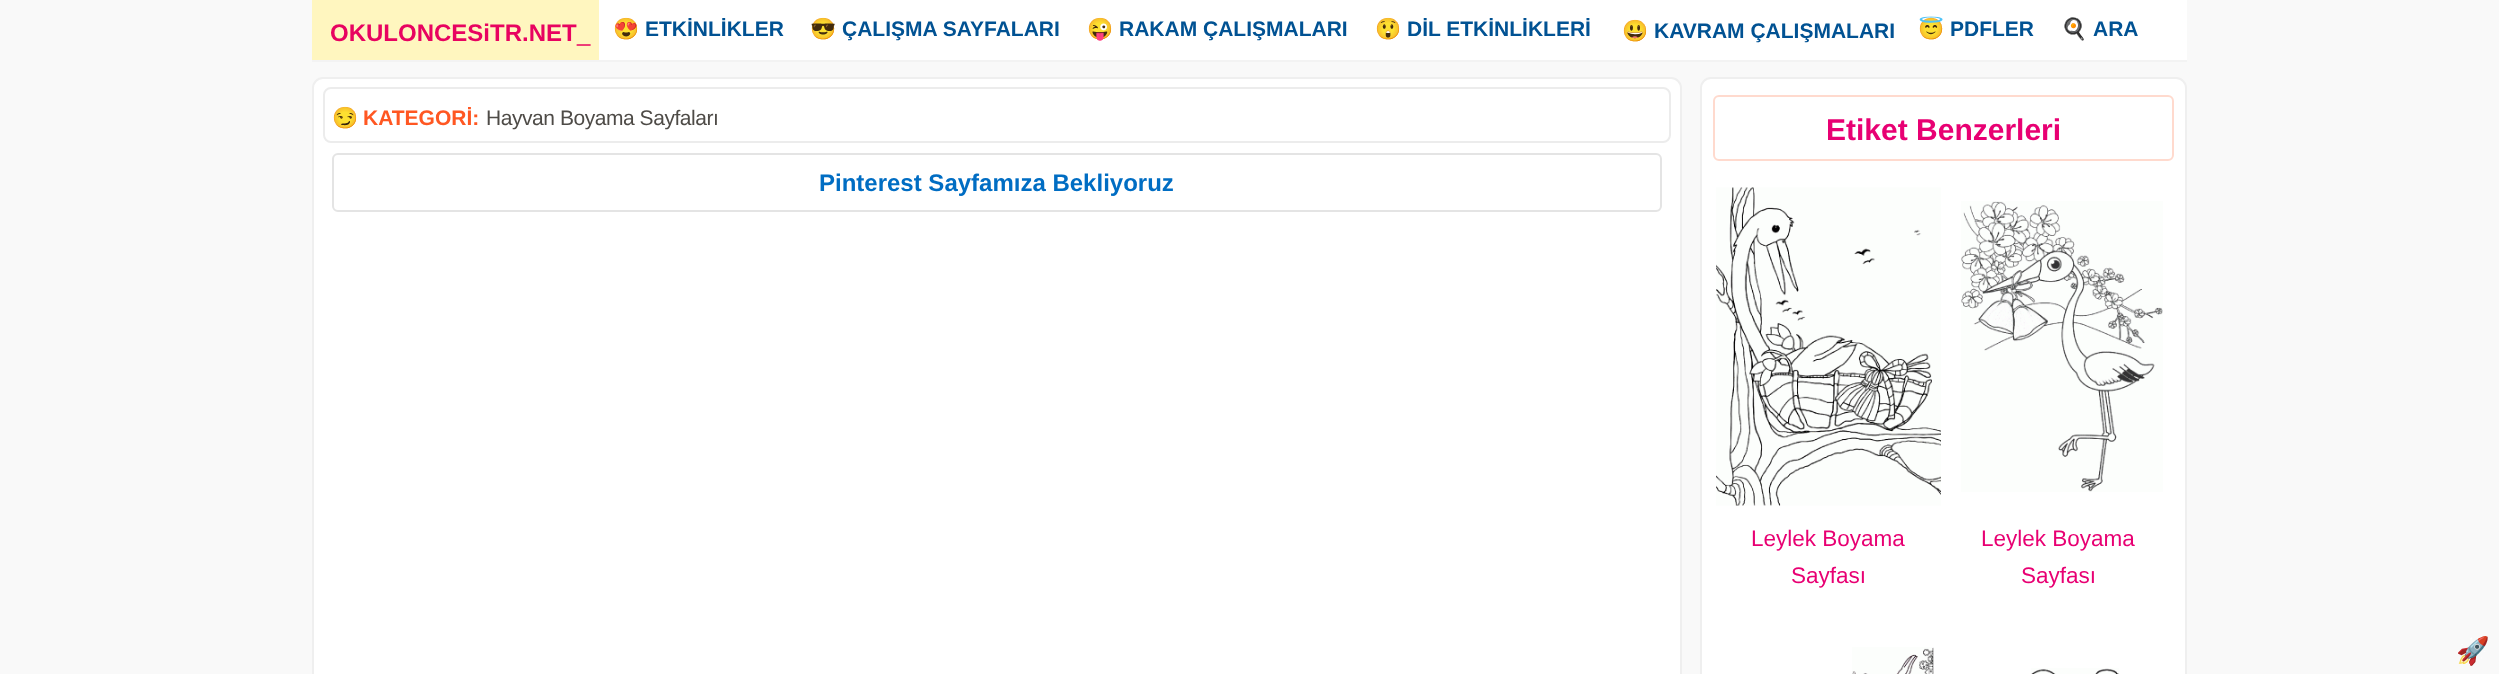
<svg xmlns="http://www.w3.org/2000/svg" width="2499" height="674">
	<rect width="100%" height="100%" fill="#F9F9F9" />
	<rect x="599" y="0" width="1588" height="60" fill="#FFFFFF" />
	<rect x="312" y="60" width="1875" height="2" fill="#F3F3F3" />
	<rect x="312" y="0" width="287" height="60" fill="#FFF6BF" />
	<text x="330" y="41" font-family="Liberation Sans" font-size="24" font-weight="700" fill="#E80360">OKULONCESiTR.NET</text>
	<text x="577" y="41" font-family="Liberation Sans" font-size="24" fill="#E80360">_</text>
	<text x="613" y="36" font-family="Noto Color Emoji" font-size="21" fill="#015293">😍</text>
	<text x="645" y="36" font-family="Liberation Sans" font-size="21" font-weight="700" fill="#015293">ETKİNLİKLER</text>
	<text x="810" y="36" font-family="Noto Color Emoji" font-size="21" fill="#015293">😎</text>
	<text x="842" y="36" font-family="Liberation Sans" font-size="21" font-weight="700" fill="#015293">ÇALIŞMA SAYFALARI</text>
	<text x="1087" y="36" font-family="Noto Color Emoji" font-size="21" fill="#015293">😜</text>
	<text x="1119" y="36" font-family="Liberation Sans" font-size="21" font-weight="700" fill="#015293">RAKAM ÇALIŞMALARI</text>
	<text x="1375" y="36" font-family="Noto Color Emoji" font-size="21" fill="#015293">😲</text>
	<text x="1407" y="36" font-family="Liberation Sans" font-size="21" font-weight="700" fill="#015293">DİL ETKİNLİKLERİ</text>
	<text x="1622" y="38" font-family="Noto Color Emoji" font-size="21" fill="#015293">😃</text>
	<text x="1654" y="38" font-family="Liberation Sans" font-size="21" font-weight="700" fill="#015293">KAVRAM ÇALIŞMALARI</text>
	<text x="1918" y="36" font-family="Noto Color Emoji" font-size="21" fill="#015293">😇</text>
	<text x="1950" y="36" font-family="Liberation Sans" font-size="21" font-weight="700" fill="#015293">PDFLER</text>
	<text x="2061" y="36" font-family="Noto Color Emoji" font-size="21" fill="#015293">🍳</text>
	<text x="2093" y="36" font-family="Liberation Sans" font-size="21" font-weight="700" fill="#015293">ARA</text>
	<rect x="313" y="78" width="1368" height="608" rx="10" fill="#FFFFFF" stroke="#EFEFEF" stroke-width="2" />
	<rect x="324" y="88" width="1346" height="54" rx="7" fill="none" stroke="#ECECEC" stroke-width="2" />
	<text x="332" y="125" font-family="Noto Color Emoji" font-size="21" fill="#FF5722">😏</text>
	<text x="363" y="125" font-family="Liberation Sans" font-size="21" font-weight="700" fill="#FF5722">KATEGORİ:</text>
	<text x="486" y="125" font-family="Liberation Sans" font-size="21" letter-spacing="-0.45" fill="#4E4B47">Hayvan Boyama Sayfaları</text>
	<rect x="333" y="154" width="1328" height="57" rx="5" fill="none" stroke="#E4E4E4" stroke-width="2" />
	<text x="819" y="191" font-family="Liberation Sans" font-size="24" font-weight="700" fill="#006DC3">Pinterest Sayfamıza Bekliyoruz</text>
	<rect x="1701" y="78" width="485" height="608" rx="10" fill="#FFFFFF" stroke="#EFEFEF" stroke-width="2" />
	<rect x="1714" y="96" width="459" height="64" rx="5" fill="none" stroke="#FFDACE" stroke-width="2" />
	<text x="1826" y="140" font-family="Liberation Sans" font-size="30" font-weight="700" fill="#E80073">Etiket Benzerleri</text>
	<image x="1716" y="187" width="225" height="319" href="assets/img1.png" />
	<g font-family="Liberation Sans" font-size="22.5" fill="#E80073">
		<text x="1751" y="546">Leylek Boyama</text>
		<text x="1791" y="583">Sayfası</text>
	</g>
	<image x="1961" y="201" width="202" height="291" href="assets/img2.png" />
	<g font-family="Liberation Sans" font-size="22.5" fill="#E80073">
		<text x="1981" y="546">Leylek Boyama</text>
		<text x="2021" y="583">Sayfası</text>
	</g>
	<image x="1852" y="647" width="82" height="27" href="assets/img3.png" />
	<image x="2031" y="668" width="88" height="6" href="assets/img4.png" />
	<text x="2456" y="660" font-family="Noto Color Emoji" font-size="27" fill="#0065B6">🚀</text>
</svg>
